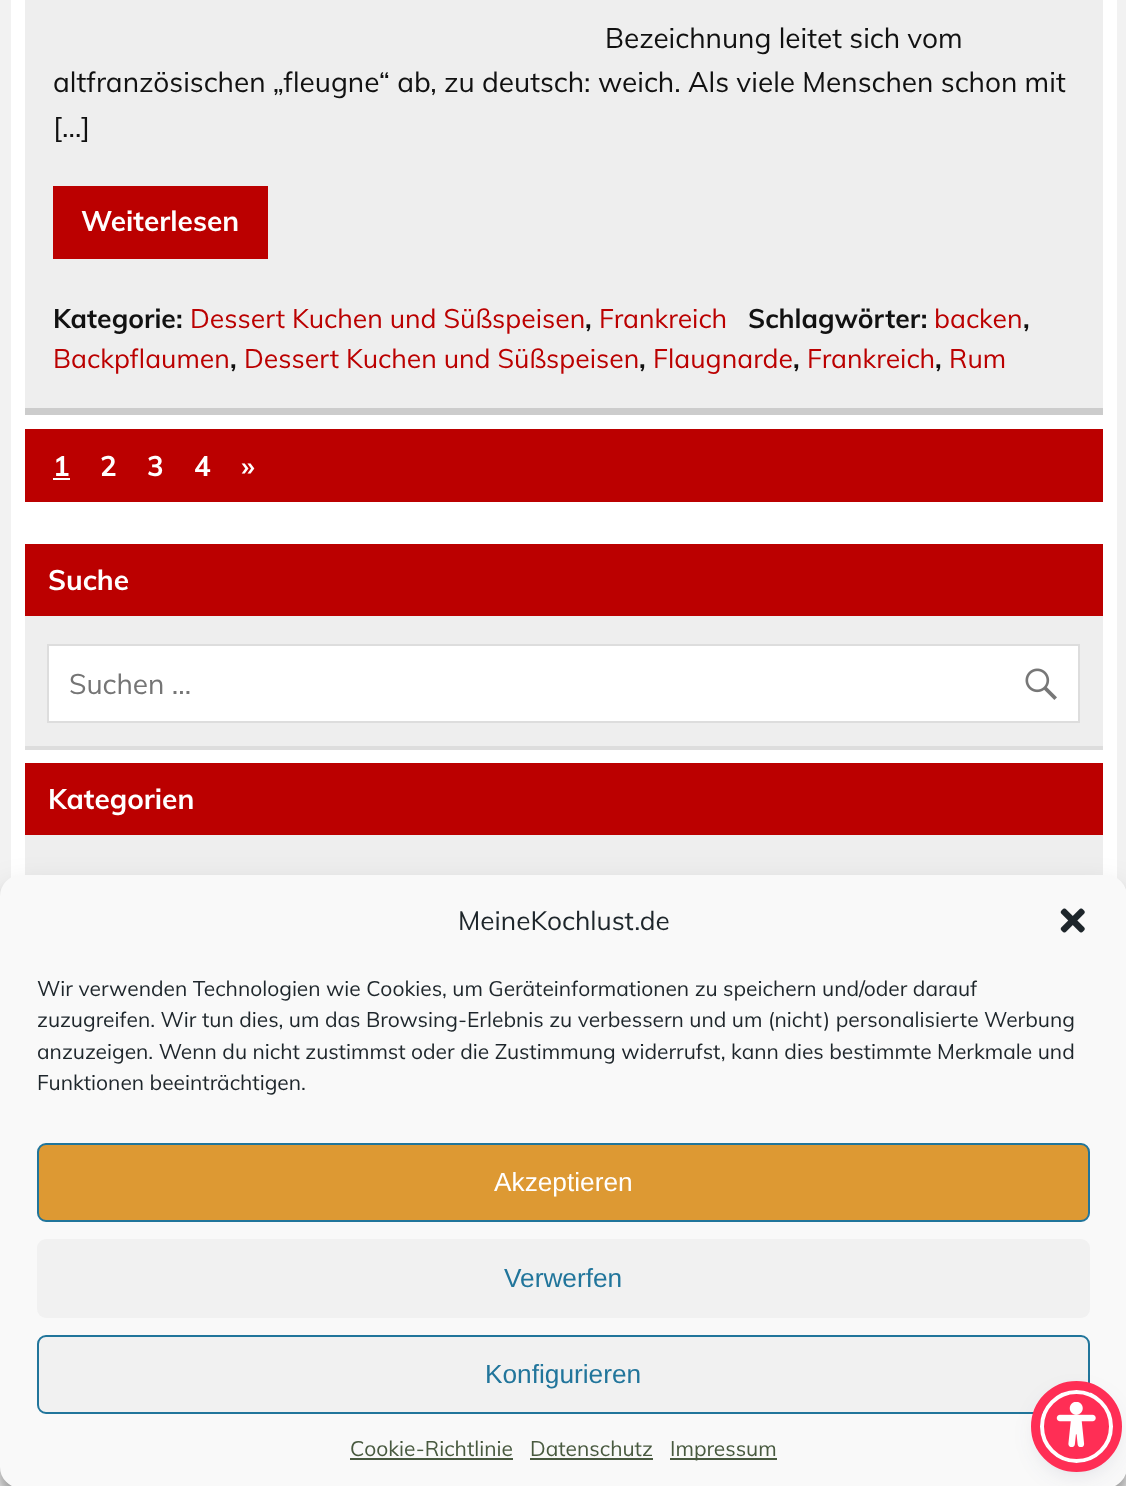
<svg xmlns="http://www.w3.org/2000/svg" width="1126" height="1486">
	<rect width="100%" height="100%" fill="#F2F2F2" />
	<rect x="11" y="0" width="1106" height="1486" fill="#FFFFFF" />
	<rect x="25" y="0" width="1078" height="408" fill="#EEEEEE" />
	<rect x="25" y="408" width="1078" height="7" fill="#CCCCCC" />
	<g font-family="Muli" font-size="28" fill="#111111">
		<text x="605" y="48">Bezeichnung leitet sich vom</text>
		<text x="53" y="92">altfranzösischen „fleugne“ ab, zu deutsch: weich. Als viele Menschen schon mit</text>
		<text x="53" y="137">[…]</text>
	</g>
	<rect x="53" y="186" width="215" height="73" fill="#BB0000" />
	<text x="81" y="231" font-family="Muli" font-size="28" font-weight="700" fill="#FFFFFF">Weiterlesen</text>
	<text x="53" y="328" font-family="Muli" font-size="26.6" font-weight="700" fill="#111111">Kategorie:</text>
	<text x="190" y="328" font-family="Muli" font-size="26.6" fill="#BB0000">Dessert Kuchen und Süßspeisen</text>
	<text x="585" y="328" font-family="Muli" font-size="26.6" font-weight="700" fill="#111111">,</text>
	<text x="599" y="328" font-family="Muli" font-size="26.6" fill="#BB0000">Frankreich</text>
	<text x="748" y="328" font-family="Muli" font-size="26.6" font-weight="700" fill="#111111">Schlagwörter:</text>
	<text x="934" y="328" font-family="Muli" font-size="26.6" fill="#BB0000">backen</text>
	<text x="1023" y="328" font-family="Muli" font-size="26.6" font-weight="700" fill="#111111">,</text>
	<text x="53" y="368" font-family="Muli" font-size="26.6" fill="#BB0000">Backpflaumen</text>
	<text x="230" y="368" font-family="Muli" font-size="26.6" font-weight="700" fill="#111111">,</text>
	<text x="244" y="368" font-family="Muli" font-size="26.6" fill="#BB0000">Dessert Kuchen und Süßspeisen</text>
	<text x="639" y="368" font-family="Muli" font-size="26.6" font-weight="700" fill="#111111">,</text>
	<text x="653" y="368" font-family="Muli" font-size="26.6" fill="#BB0000">Flaugnarde</text>
	<text x="793" y="368" font-family="Muli" font-size="26.6" font-weight="700" fill="#111111">,</text>
	<text x="807" y="368" font-family="Muli" font-size="26.6" fill="#BB0000">Frankreich</text>
	<text x="935" y="368" font-family="Muli" font-size="26.6" font-weight="700" fill="#111111">,</text>
	<text x="949" y="368" font-family="Muli" font-size="26.6" fill="#BB0000">Rum</text>
	<rect x="25" y="429" width="1078" height="73" fill="#BB0000" />
	<text x="53" y="476" font-family="Muli" font-size="28" font-weight="700" fill="#FFFFFF">1</text>
	<rect x="53" y="478" width="17" height="2" fill="#FFFFFF" />
	<g font-family="Muli" font-size="28" font-weight="700" fill="#FFFFFF">
		<text x="100" y="476">2</text>
		<text x="147" y="476">3</text>
		<text x="194" y="476">4</text>
		<text x="241" y="476">»</text>
	</g>
	<rect x="25" y="616" width="1078" height="130" fill="#EEEEEE" />
	<rect x="25" y="746" width="1078" height="4" fill="#DDDDDD" />
	<rect x="25" y="544" width="1078" height="72" fill="#BB0000" />
	<text x="48" y="590" font-family="Muli" font-size="28" font-weight="700" fill="#FFFFFF">Suche</text>
	<rect x="48" y="645" width="1031" height="77" fill="#FFFFFF" stroke="#DDDDDD" stroke-width="2" />
	<text x="69" y="694" font-family="Muli" font-size="28" fill="#757575">Suchen …</text>
	<image x="1025" y="668" width="32" height="32" href="assets/img1.png" />
	<rect x="25" y="835" width="1078" height="40" fill="#EEEEEE" />
	<rect x="25" y="763" width="1078" height="72" fill="#BB0000" />
	<text x="48" y="809" font-family="Muli" font-size="28" font-weight="700" fill="#FFFFFF">Kategorien</text>
	<rect x="0" y="886" width="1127" height="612" rx="21" fill="#000000" fill-opacity="0.23" filter="blur(5px)" />
	<rect x="0" y="893" width="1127" height="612" rx="21" fill="#000000" fill-opacity="0.19" filter="blur(17.5px)" />
	<rect x="1" y="876" width="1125" height="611" rx="20" fill="#F9F9F9" stroke="#F9F9F9" stroke-width="2" />
	<text x="458" y="930" font-family="Muli" font-size="26.25" fill="#1E262B">MeineKochlust.de</text>
	<image x="1060" y="908" width="25" height="25" href="assets/img2.png" />
	<g font-family="Muli" font-size="21" fill="#1E262B">
		<text x="37" y="996">Wir verwenden Technologien wie Cookies, um Geräteinformationen zu speichern und/oder darauf</text>
		<text x="37" y="1027">zuzugreifen. Wir tun dies, um das Browsing-Erlebnis zu verbessern und um (nicht) personalisierte Werbung</text>
		<text x="37" y="1059">anzuzeigen. Wenn du nicht zustimmst oder die Zustimmung widerrufst, kann dies bestimmte Merkmale und</text>
		<text x="37" y="1090">Funktionen beeinträchtigen.</text>
	</g>
	<rect x="38" y="1144" width="1051" height="77" rx="8" fill="#DD9933" stroke="#21759B" stroke-width="2" />
	<text x="494" y="1191" font-family="Liberation Sans" font-size="26.25" fill="#FFFFFF">Akzeptieren</text>
	<rect x="37" y="1239" width="1053" height="79" rx="9" fill="#F1F1F1" />
	<text x="504" y="1287" font-family="Liberation Sans" font-size="26.25" fill="#21759B">Verwerfen</text>
	<rect x="38" y="1336" width="1051" height="77" rx="8" fill="#F1F1F1" stroke="#21759B" stroke-width="2" />
	<text x="485" y="1383" font-family="Liberation Sans" font-size="26.25" fill="#21759B">Konfigurieren</text>
	<text x="350" y="1456" font-family="Muli" font-size="21" fill="#48593F">Cookie-Richtlinie</text>
	<rect x="350" y="1458" width="163" height="2" fill="#48593F" />
	<text x="530" y="1456" font-family="Muli" font-size="21" fill="#48593F">Datenschutz</text>
	<rect x="530" y="1458" width="123" height="2" fill="#48593F" />
	<rect x="670" y="1458" width="107" height="2" fill="#48593F" />
	<text x="670" y="1456" font-family="Muli" font-size="21" fill="#48593F">Impressum</text>
	<rect x="1040" y="1393" width="73" height="74" rx="36.5" fill="#5D6494" fill-opacity="0.2" filter="blur(3.5px)" />
	<rect x="1040" y="1398" width="73" height="74" rx="36.5" fill="#252C61" fill-opacity="0.15" filter="blur(13px)" />
	<circle cx="1076.5" cy="1426.5" r="34.5" fill="#FF2E55" stroke="#FFFFFF" stroke-width="4" />
	<circle cx="1076.5" cy="1426.5" r="41" fill="none" stroke="#FF2E55" stroke-width="9" />
	<image x="1056" y="1402" width="40" height="45" href="assets/img3.png" />
</svg>
